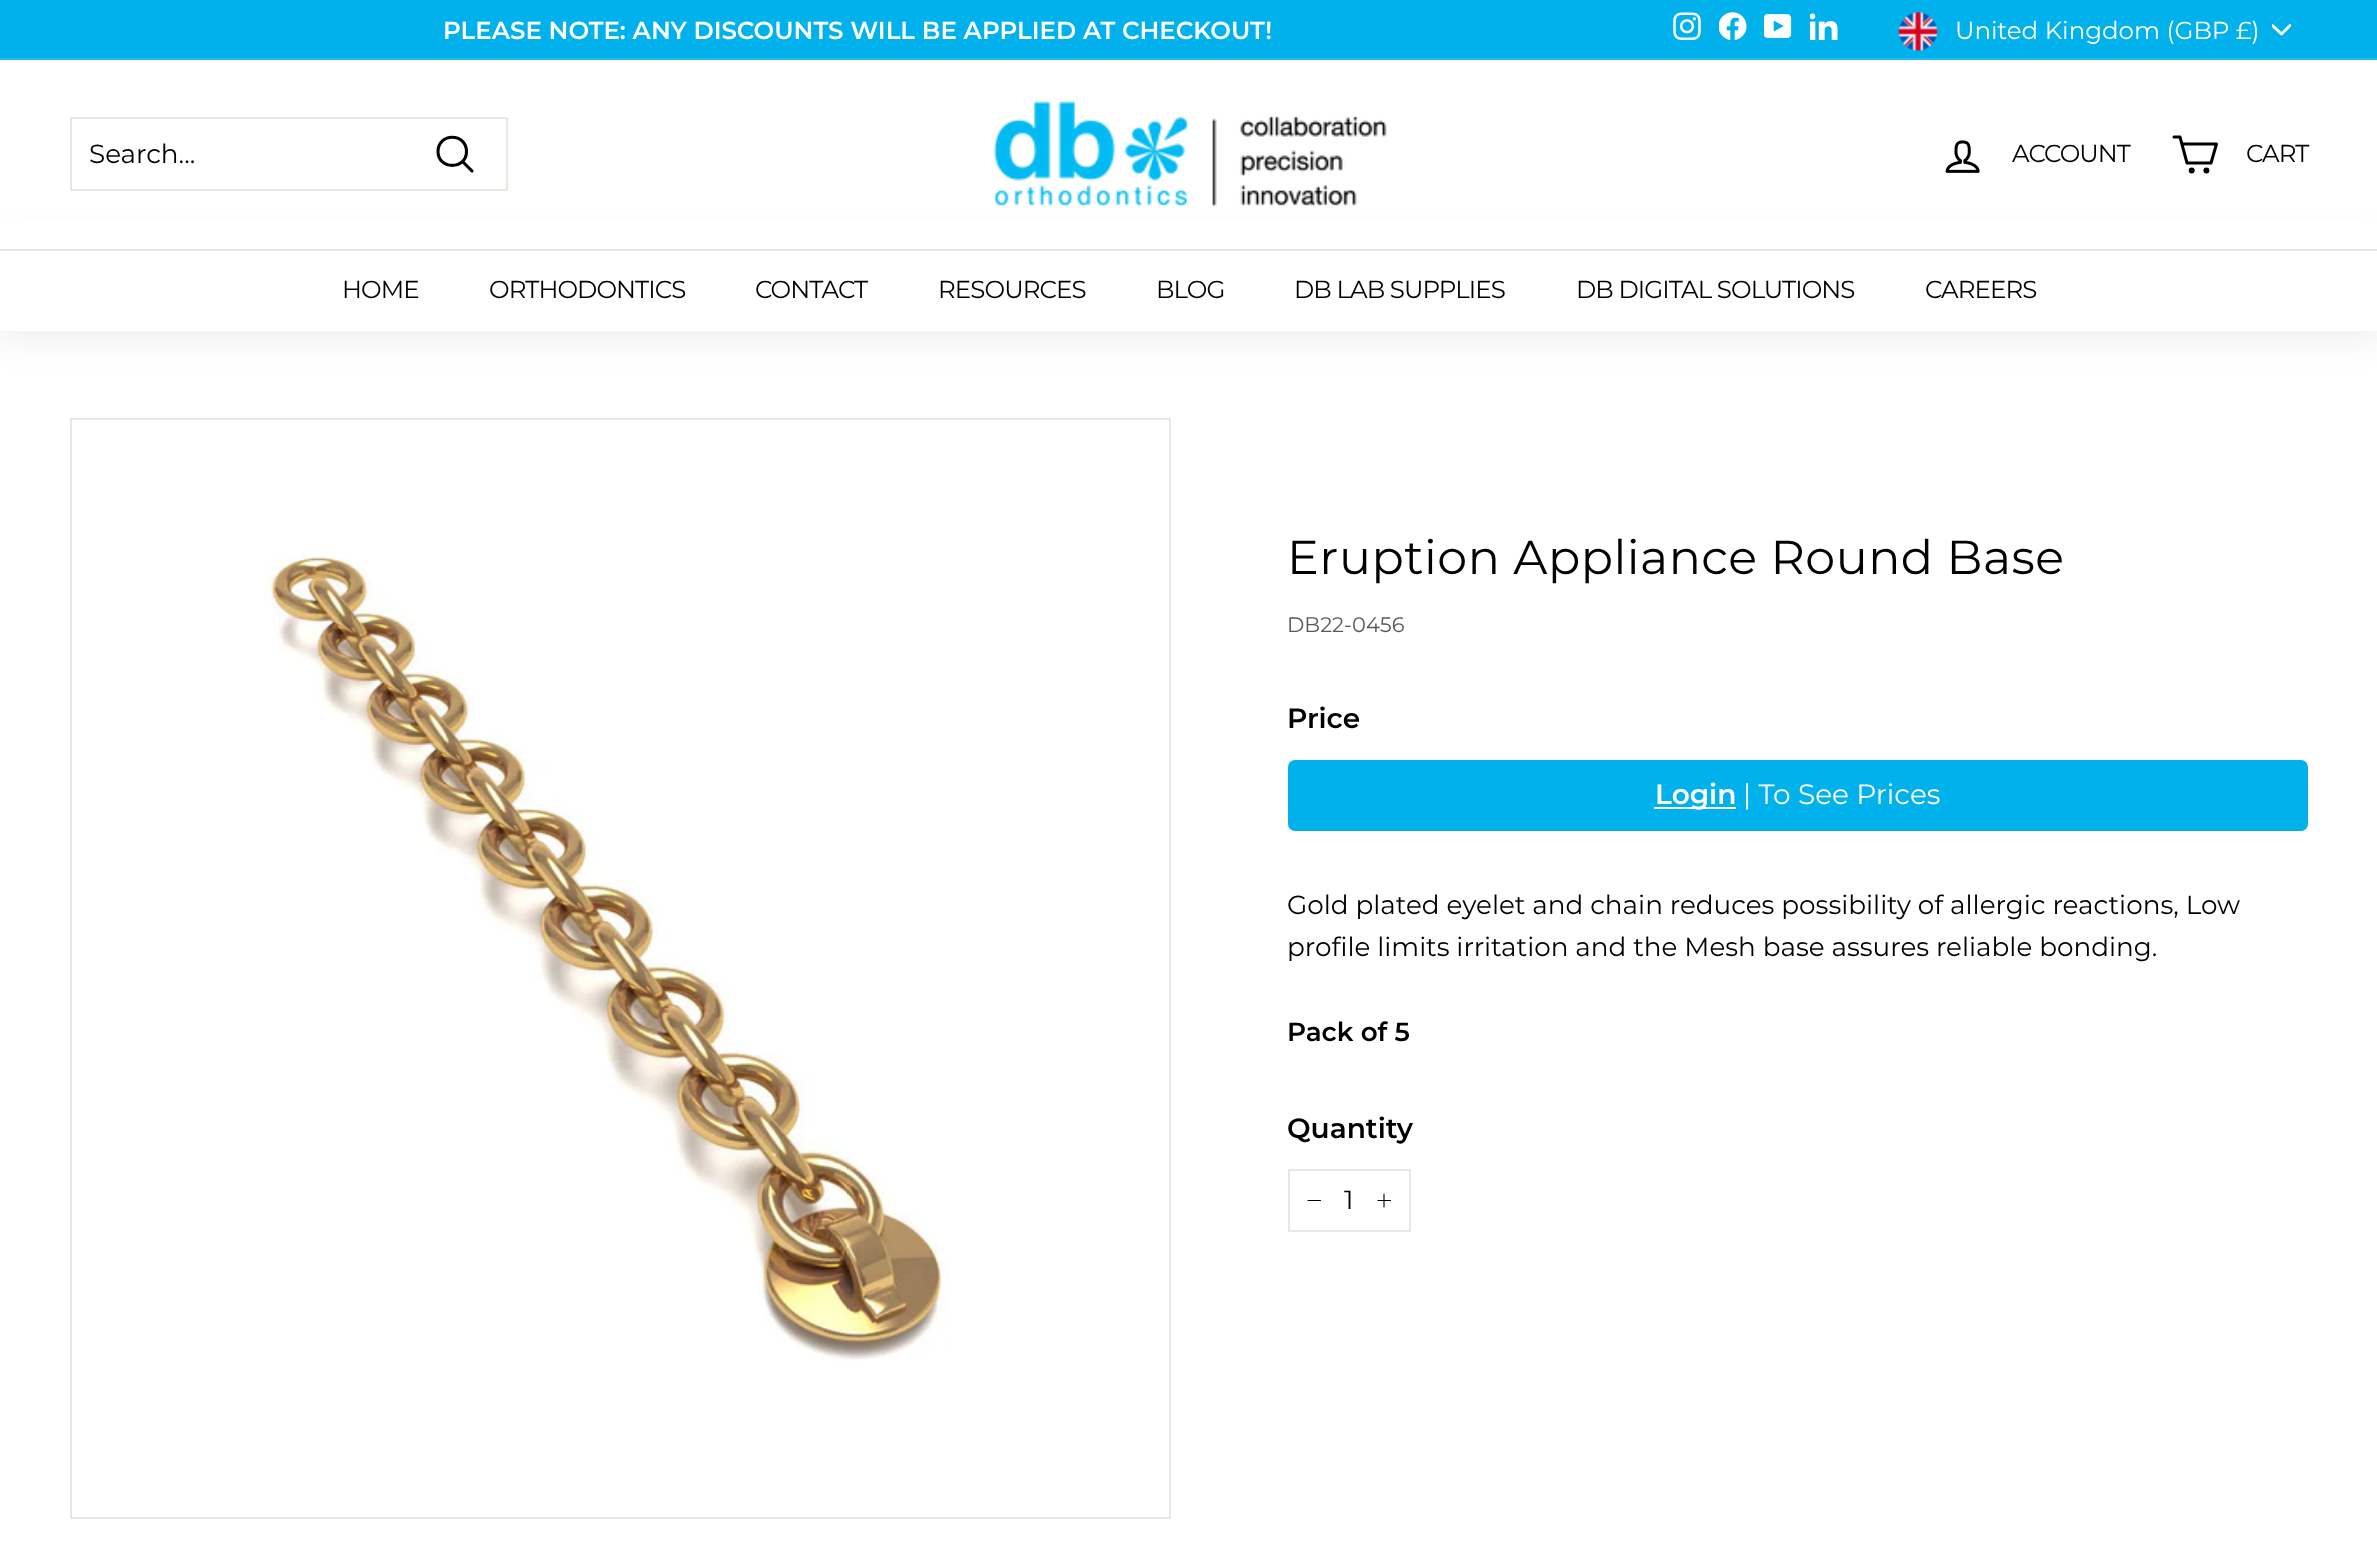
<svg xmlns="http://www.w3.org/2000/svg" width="2377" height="1547">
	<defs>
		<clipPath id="clip1"><rect x="2272" y="21" width="19" height="19" /></clipPath>
	</defs>
	<rect width="100%" height="100%" fill="#FFFFFF" />
	<rect x="0" y="0" width="2377" height="58" fill="#00B1EB" />
	<text x="443" y="39" font-family="Montserrat" font-size="24.5" font-weight="600" fill="#FFFFFF">PLEASE NOTE: ANY DISCOUNTS WILL BE APPLIED AT CHECKOUT!</text>
	<image x="1673" y="12" width="28" height="28" href="assets/img1.png" />
	<image x="1719" y="12" width="28" height="28" href="assets/img2.png" />
	<image x="1764" y="14" width="28" height="24" href="assets/img3.png" />
	<image x="1810" y="13" width="28" height="27" href="assets/img4.png" />
	<image x="1898" y="12" width="40" height="40" href="assets/img5.png" />
	<text x="1955" y="39" font-family="Montserrat" font-size="24.5" font-weight="100" fill="#FFFFFF">United Kingdom (GBP £)</text>
	<g clip-path="url(#clip1)">
		<path d="M2272.5 25.5L2281.5 34L2290 25.5" fill="none" stroke="#FFFFFF" stroke-width="2.8" stroke-linecap="round" stroke-linejoin="round" />
	</g>
	<rect x="0" y="58" width="2377" height="2" fill="#26BDEE" />
	<rect x="0" y="249" width="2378" height="82" fill="#000000" fill-opacity="0.1" filter="blur(22px)" />
	<rect x="0" y="221" width="2377" height="28" fill="#FFFFFF" />
	<rect x="71" y="118" width="436" height="72" fill="none" stroke="#E8E8E1" stroke-width="2" />
	<text x="89" y="163" font-family="Montserrat" font-size="26.25" font-weight="100" fill="#000000">Search...</text>
	<path d="M466.5 151.5C466.5 170 438 170 438 151.5C438 132.5 466.5 132.5 466.5 151.5ZM472 171L462.5 161.5" fill="none" stroke="#000000" stroke-width="3.1" stroke-linecap="round" stroke-linejoin="round" />
	<image x="993" y="101" width="394" height="106" href="assets/img6.png" />
	<image x="1945" y="140" width="35" height="33" href="assets/img7.png" />
	<text x="2012" y="162" font-family="Montserrat" font-size="24.5" font-weight="100" letter-spacing="-0.9" fill="#000000">ACCOUNT</text>
	<path d="M2182 144H2216.5L2211 163H2187L2180 137H2174" fill="none" stroke="#000000" stroke-width="3" stroke-linecap="round" stroke-linejoin="round" />
	<circle cx="2191.7" cy="170.4" r="1.5" fill="none" stroke="#000000" stroke-width="3" />
	<circle cx="2206.4" cy="170.4" r="1.5" fill="none" stroke="#000000" stroke-width="3" />
	<text x="2246" y="162" font-family="Montserrat" font-size="24.5" font-weight="100" letter-spacing="-0.9" fill="#000000">CART</text>
	<rect x="0" y="251" width="2377" height="80" fill="#FFFFFF" />
	<rect x="0" y="249" width="2377" height="2" fill="#E6E6E6" />
	<g font-family="Montserrat" font-size="24.5" font-weight="100" letter-spacing="-0.9" fill="#000000">
		<text x="342" y="298">HOME</text>
		<text x="489" y="298">ORTHODONTICS</text>
		<text x="755" y="298">CONTACT</text>
		<text x="938" y="298">RESOURCES</text>
		<text x="1156" y="298">BLOG</text>
		<text x="1294" y="298">DB LAB SUPPLIES</text>
		<text x="1576" y="298">DB DIGITAL SOLUTIONS</text>
		<text x="1925" y="298">CAREERS</text>
	</g>
	<rect x="71" y="419" width="1099" height="1099" fill="none" stroke="#E8E8E1" stroke-width="2" />
	<image x="263" y="554" width="686" height="807" href="assets/img8.png" />
	<text x="1287" y="574" font-family="Montserrat" font-size="47.6" font-weight="100" letter-spacing="0.5" fill="#000000">Eruption Appliance Round Base</text>
	<text x="1287" y="632" font-family="Montserrat" font-size="21" font-weight="100" fill="#595959">DB22-0456</text>
	<text x="1287" y="728" font-family="Montserrat" font-size="28" font-weight="600" fill="#000000">Price</text>
	<rect x="1288" y="760" width="1020" height="71" rx="7" fill="#00B1EB" />
	<rect x="1654" y="807" width="82" height="2" fill="#FFFFFF" />
	<text x="1655" y="804" font-family="Montserrat" font-size="28" font-weight="600" fill="#FFFFFF">Login</text>
	<text x="1743" y="804" font-family="Montserrat" font-size="28" font-weight="100" fill="#FFFFFF">| To See Prices</text>
	<g font-family="Montserrat" font-size="26.25" font-weight="100" fill="#000000">
		<text x="1287" y="914">Gold plated eyelet and chain reduces possibility of allergic reactions, Low</text>
		<text x="1287" y="956">profile limits irritation and the Mesh base assures reliable bonding.</text>
	</g>
	<text x="1287" y="1041" font-family="Montserrat" font-size="26.25" font-weight="600" fill="#000000">Pack of 5</text>
	<text x="1287" y="1138" font-family="Montserrat" font-size="28" font-weight="600" fill="#000000">Quantity</text>
	<rect x="1289" y="1170" width="121" height="61" fill="none" stroke="#E8E8E1" stroke-width="2" />
	<path d="M1320.5 1200.5H1308" fill="none" stroke="#000000" stroke-width="1.1" stroke-linecap="round" stroke-linejoin="round" />
	<text x="1344" y="1209" font-family="Montserrat" font-size="26.25" font-weight="100" fill="#000000">1</text>
	<path d="M1384 1194V1207M1390.5 1200.5H1378" fill="none" stroke="#000000" stroke-width="1.1" stroke-linecap="round" stroke-linejoin="round" />
</svg>
